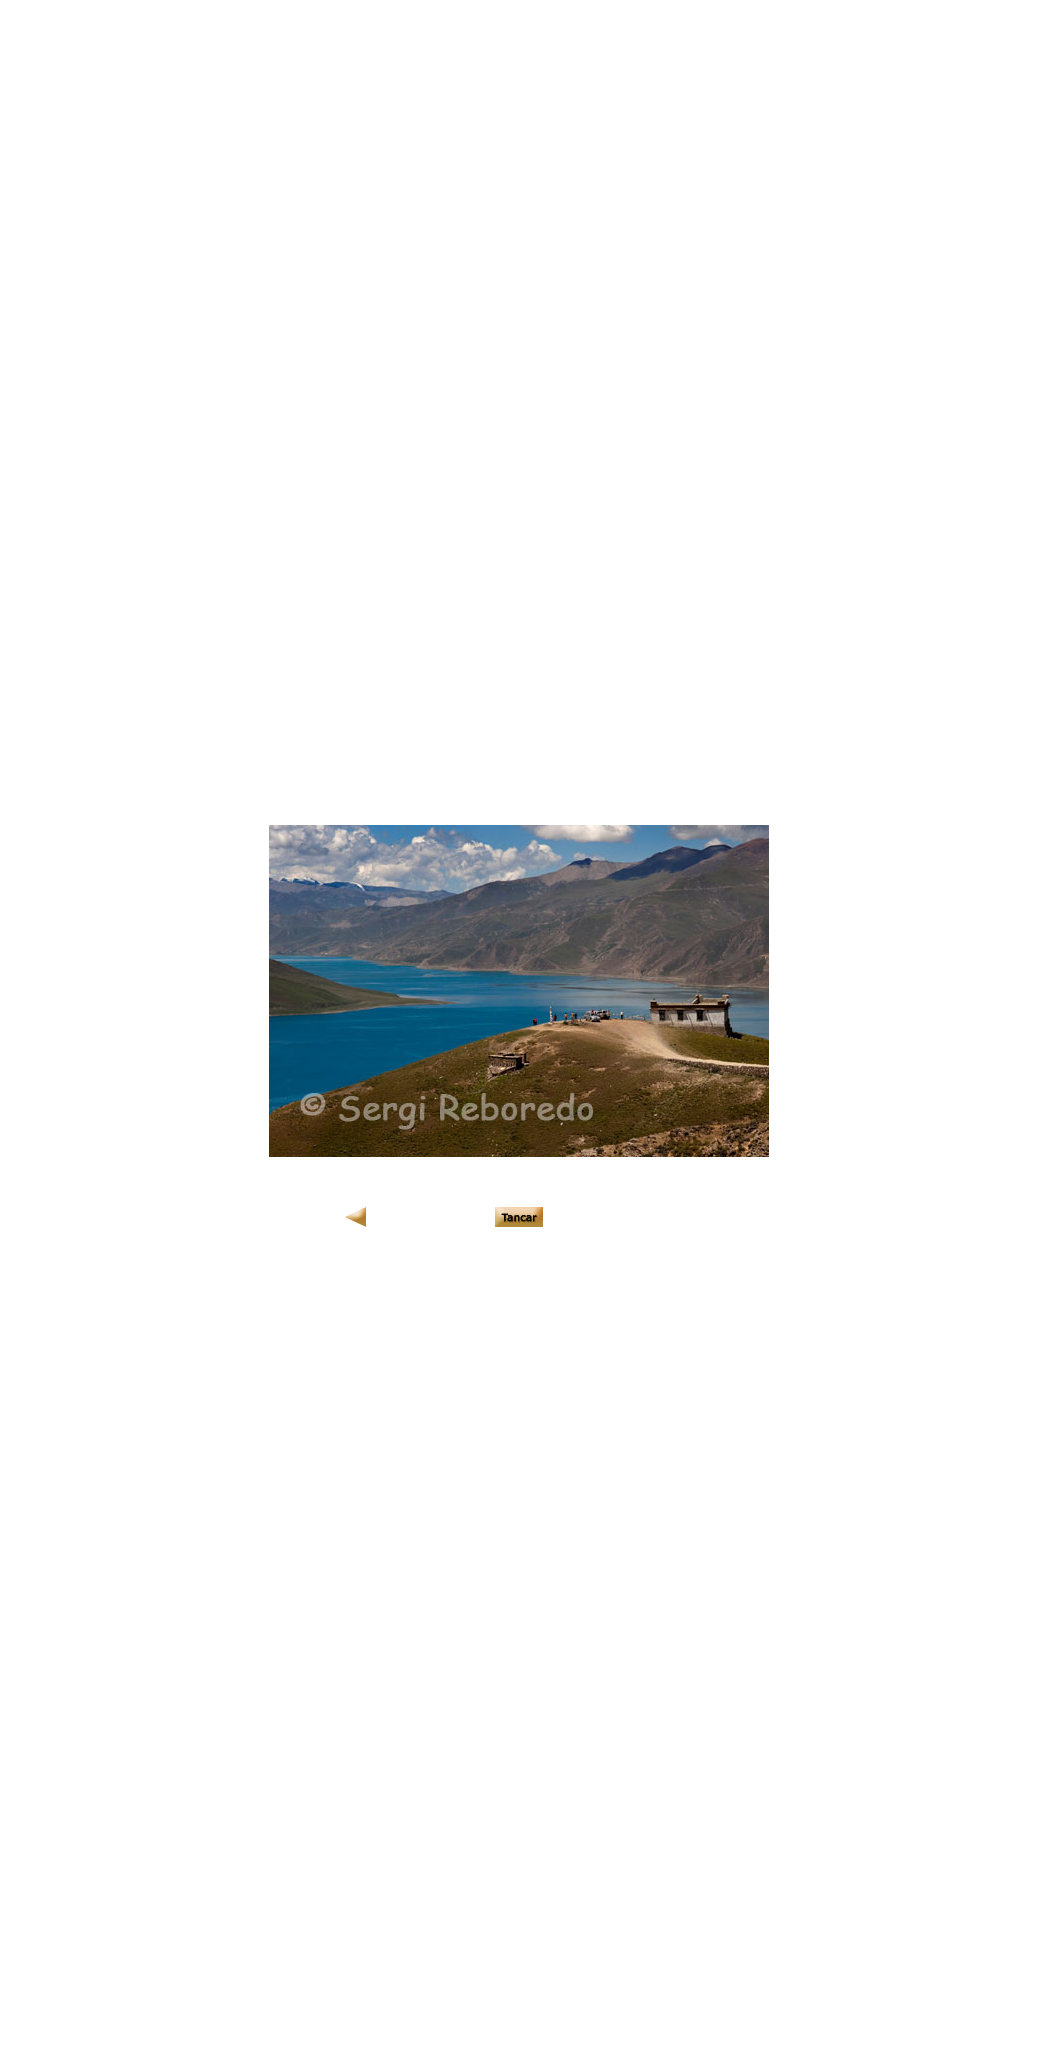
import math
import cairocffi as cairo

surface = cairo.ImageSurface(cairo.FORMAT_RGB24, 1038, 2052)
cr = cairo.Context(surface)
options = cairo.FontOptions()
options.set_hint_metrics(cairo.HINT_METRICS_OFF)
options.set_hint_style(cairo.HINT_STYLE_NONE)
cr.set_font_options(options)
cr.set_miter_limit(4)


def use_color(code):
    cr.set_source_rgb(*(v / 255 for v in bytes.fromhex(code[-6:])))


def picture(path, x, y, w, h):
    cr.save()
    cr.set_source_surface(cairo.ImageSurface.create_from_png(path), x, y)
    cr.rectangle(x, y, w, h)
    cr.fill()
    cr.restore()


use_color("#ffffff")
cr.paint()
picture("img1.png", 269, 825, 500, 332)
picture("img2.png", 345, 1207, 21, 20)
picture("img3.png", 495, 1207, 48, 20)
surface.write_to_png("result.png")
